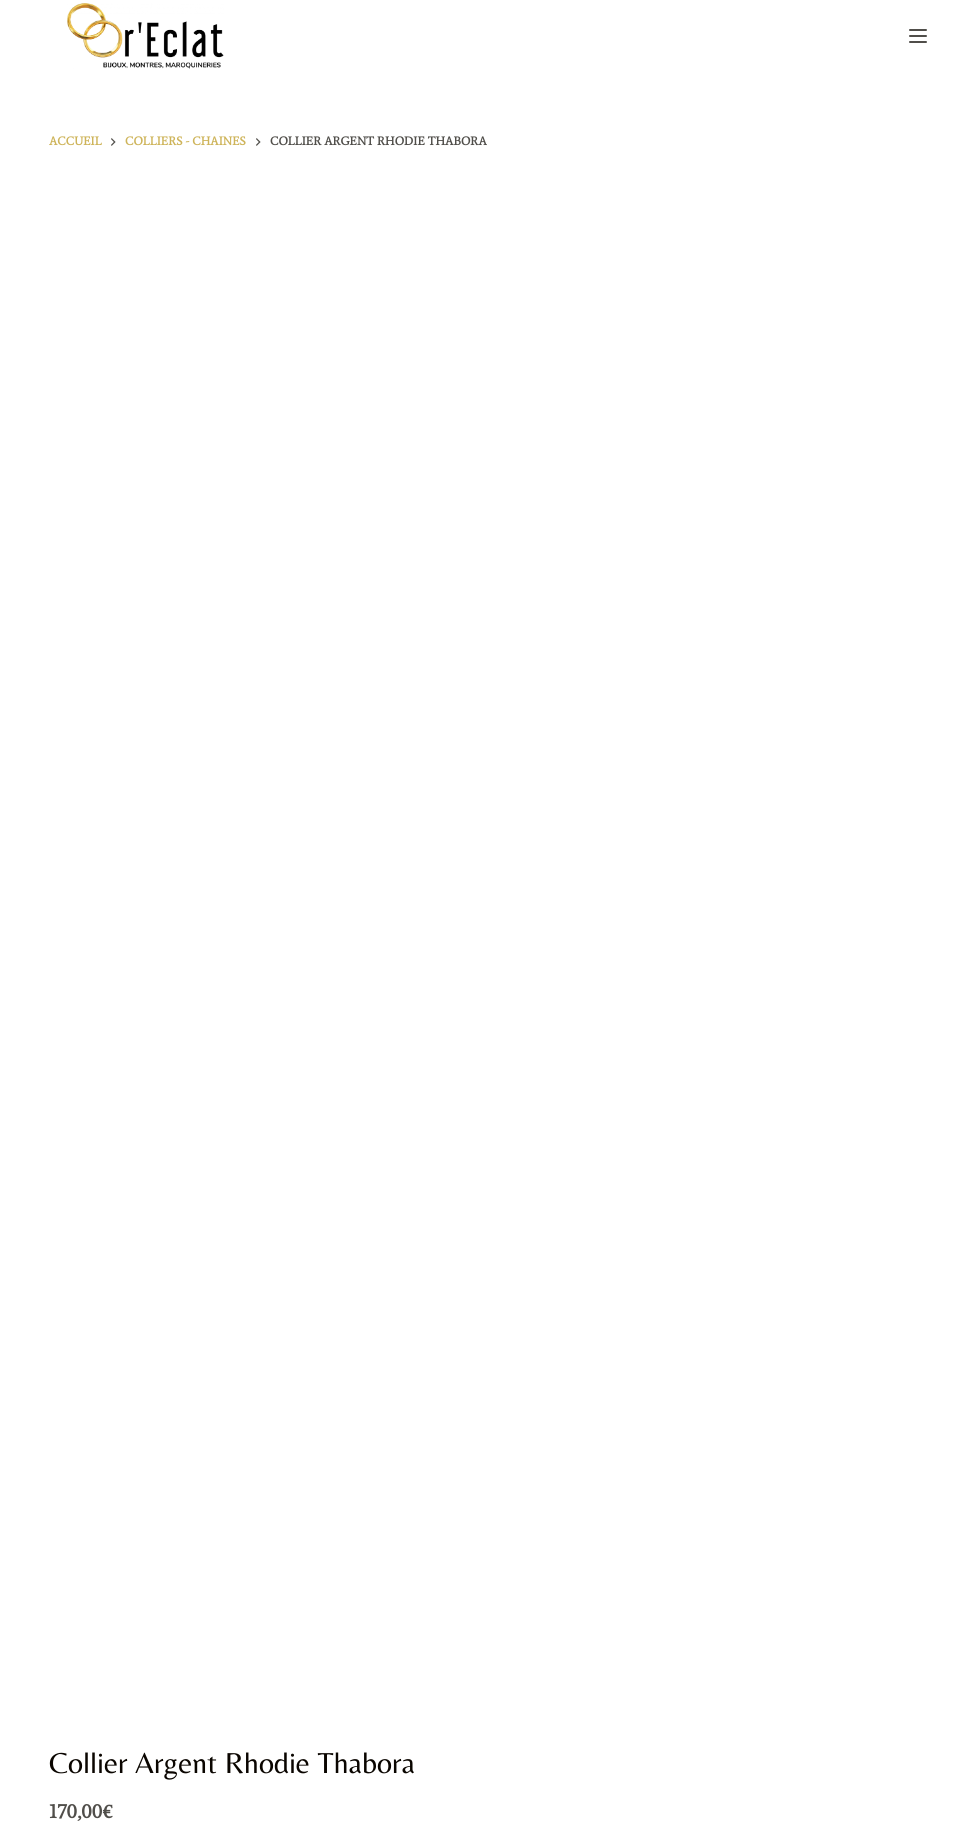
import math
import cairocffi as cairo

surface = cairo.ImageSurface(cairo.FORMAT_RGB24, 976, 1845)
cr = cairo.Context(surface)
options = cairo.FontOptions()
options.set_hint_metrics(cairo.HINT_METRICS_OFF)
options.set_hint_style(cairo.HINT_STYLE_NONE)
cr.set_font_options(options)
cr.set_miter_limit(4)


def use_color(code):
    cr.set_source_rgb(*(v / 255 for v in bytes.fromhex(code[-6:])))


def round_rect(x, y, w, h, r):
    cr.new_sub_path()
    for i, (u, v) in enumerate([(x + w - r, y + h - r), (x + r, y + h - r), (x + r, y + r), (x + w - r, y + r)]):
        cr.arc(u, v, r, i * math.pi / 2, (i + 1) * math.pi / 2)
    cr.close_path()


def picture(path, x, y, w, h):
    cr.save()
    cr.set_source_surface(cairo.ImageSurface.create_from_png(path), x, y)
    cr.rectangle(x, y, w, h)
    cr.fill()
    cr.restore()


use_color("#ffffff")
cr.paint()
picture("img1.png", 67, 3, 157, 66)
use_color("#504e4a")
round_rect(909, 29, 18, 2, 1)
cr.fill()
round_rect(909, 35, 18, 2, 1)
cr.fill()
round_rect(909, 41, 18, 2, 1)
cr.fill()
cr.select_font_face("Average", cairo.FONT_SLANT_NORMAL, cairo.FONT_WEIGHT_BOLD)
cr.set_font_size(12)
use_color("#ceb45a")
cr.move_to(49, 145)
cr.show_text("ACCUEIL")
picture("img2.png", 111, 138, 5, 8)
cr.move_to(125, 145)
cr.show_text("COLLIERS - CHAINES")
picture("img2.png", 256, 138, 5, 8)
use_color("#504e4a")
cr.move_to(270, 145)
cr.show_text("COLLIER ARGENT RHODIE THABORA")
cr.select_font_face("Belleza")
cr.set_font_size(30)
use_color("#0a0500")
cr.move_to(49, 1773)
cr.show_text("Collier Argent Rhodie Thabora")
cr.select_font_face("Average", cairo.FONT_SLANT_NORMAL, cairo.FONT_WEIGHT_BOLD)
cr.set_font_size(20)
use_color("#504e4a")
cr.move_to(49, 1818)
cr.show_text("170,00€")
surface.write_to_png("result.png")
